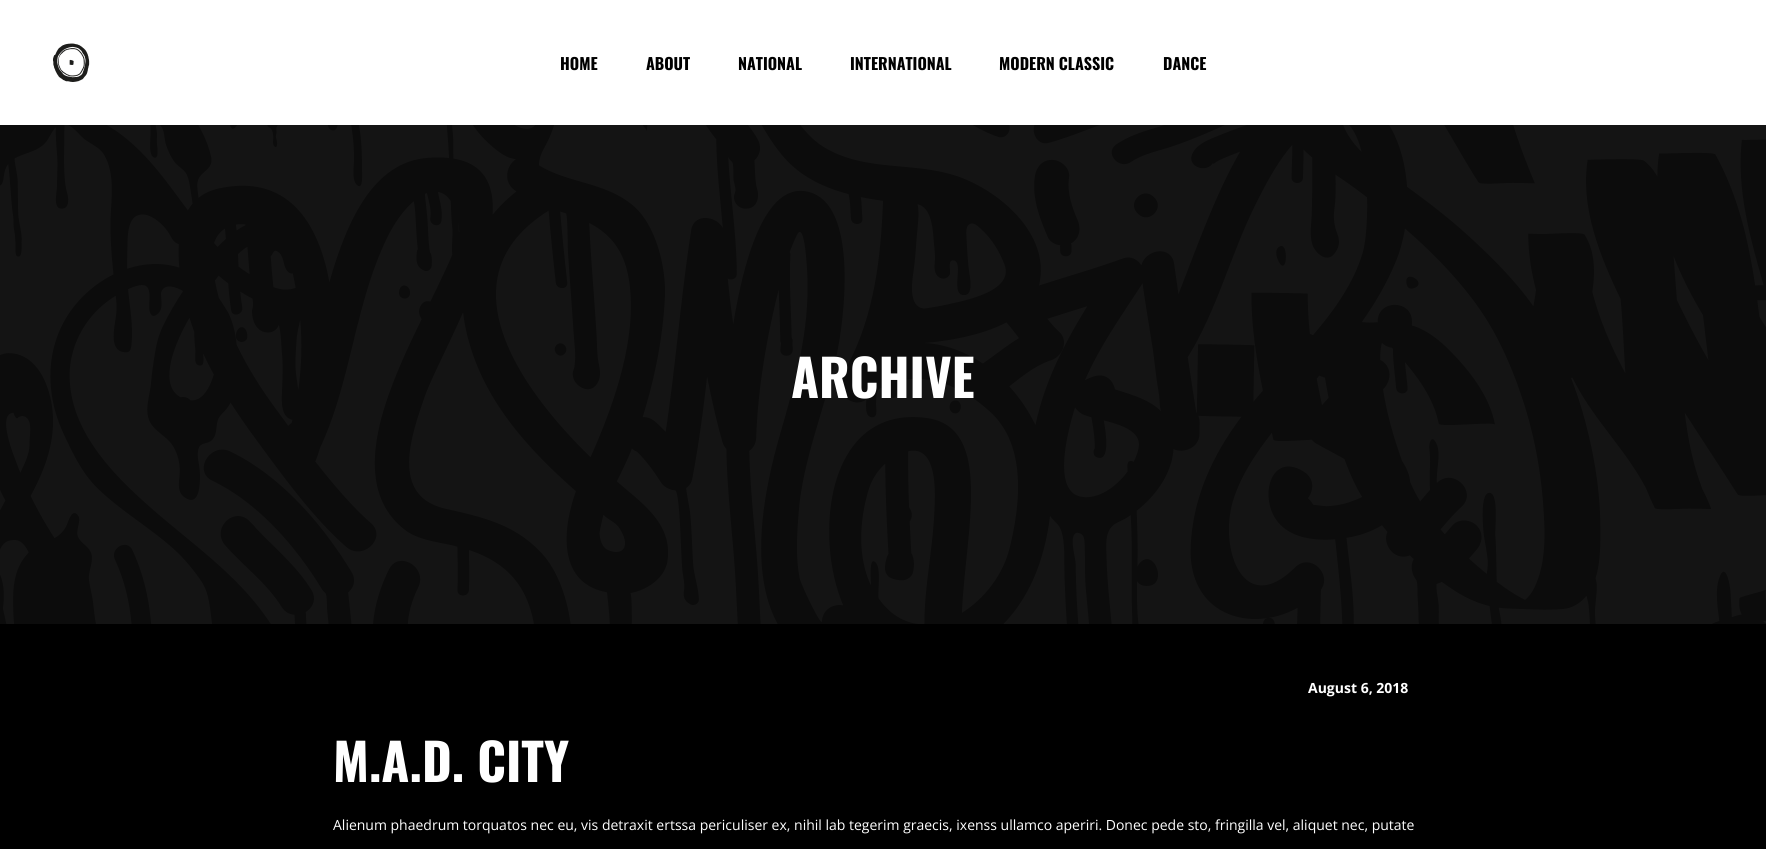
import math
import cairocffi as cairo

surface = cairo.ImageSurface(cairo.FORMAT_RGB24, 1766, 849)
cr = cairo.Context(surface)
options = cairo.FontOptions()
options.set_hint_metrics(cairo.HINT_METRICS_OFF)
options.set_hint_style(cairo.HINT_STYLE_NONE)
cr.set_font_options(options)
cr.set_miter_limit(4)


def use_color(code):
    cr.set_source_rgb(*(v / 255 for v in bytes.fromhex(code[-6:])))


def picture(path, x, y, w, h):
    cr.save()
    cr.set_source_surface(cairo.ImageSurface.create_from_png(path), x, y)
    cr.rectangle(x, y, w, h)
    cr.fill()
    cr.restore()


use_color("#ffffff")
cr.paint()
picture("img1.png", 53, 43, 37, 39)
cr.select_font_face("Oswald", cairo.FONT_SLANT_NORMAL, cairo.FONT_WEIGHT_BOLD)
cr.set_font_size(16)
use_color("#000000")
cr.move_to(560, 70)
cr.show_text("HOME")
cr.move_to(646, 70)
cr.show_text("ABOUT")
cr.move_to(738, 70)
cr.show_text("NATIONAL")
cr.move_to(850, 70)
cr.show_text("INTERNATIONAL")
cr.move_to(999, 70)
cr.show_text("MODERN CLASSIC")
cr.move_to(1163, 70)
cr.show_text("DANCE")
cr.rectangle(0, 624, 1766, 225)
cr.fill()
picture("img2.png", 0, 125, 1766, 499)
cr.set_font_size(51)
use_color("#ffffff")
cr.move_to(791, 398)
cr.show_text("ARCHIVE")
cr.select_font_face("Open Sans", cairo.FONT_SLANT_NORMAL, cairo.FONT_WEIGHT_BOLD)
cr.set_font_size(14)
cr.move_to(1308, 693)
cr.show_text("August 6, 2018")
cr.select_font_face("Oswald", cairo.FONT_SLANT_NORMAL, cairo.FONT_WEIGHT_BOLD)
cr.set_font_size(51)
cr.move_to(333, 782)
cr.show_text("M.A.D. CITY")
cr.select_font_face("Open Sans")
cr.set_font_size(14)
cr.move_to(333, 830)
cr.show_text("Alienum phaedrum torquatos nec eu, vis detraxit ertssa periculiser ex, nihil lab tegerim graecis, ixenss ullamco aperiri. Donec pede sto, fringilla vel, aliquet nec, putate")
surface.write_to_png("result.png")
